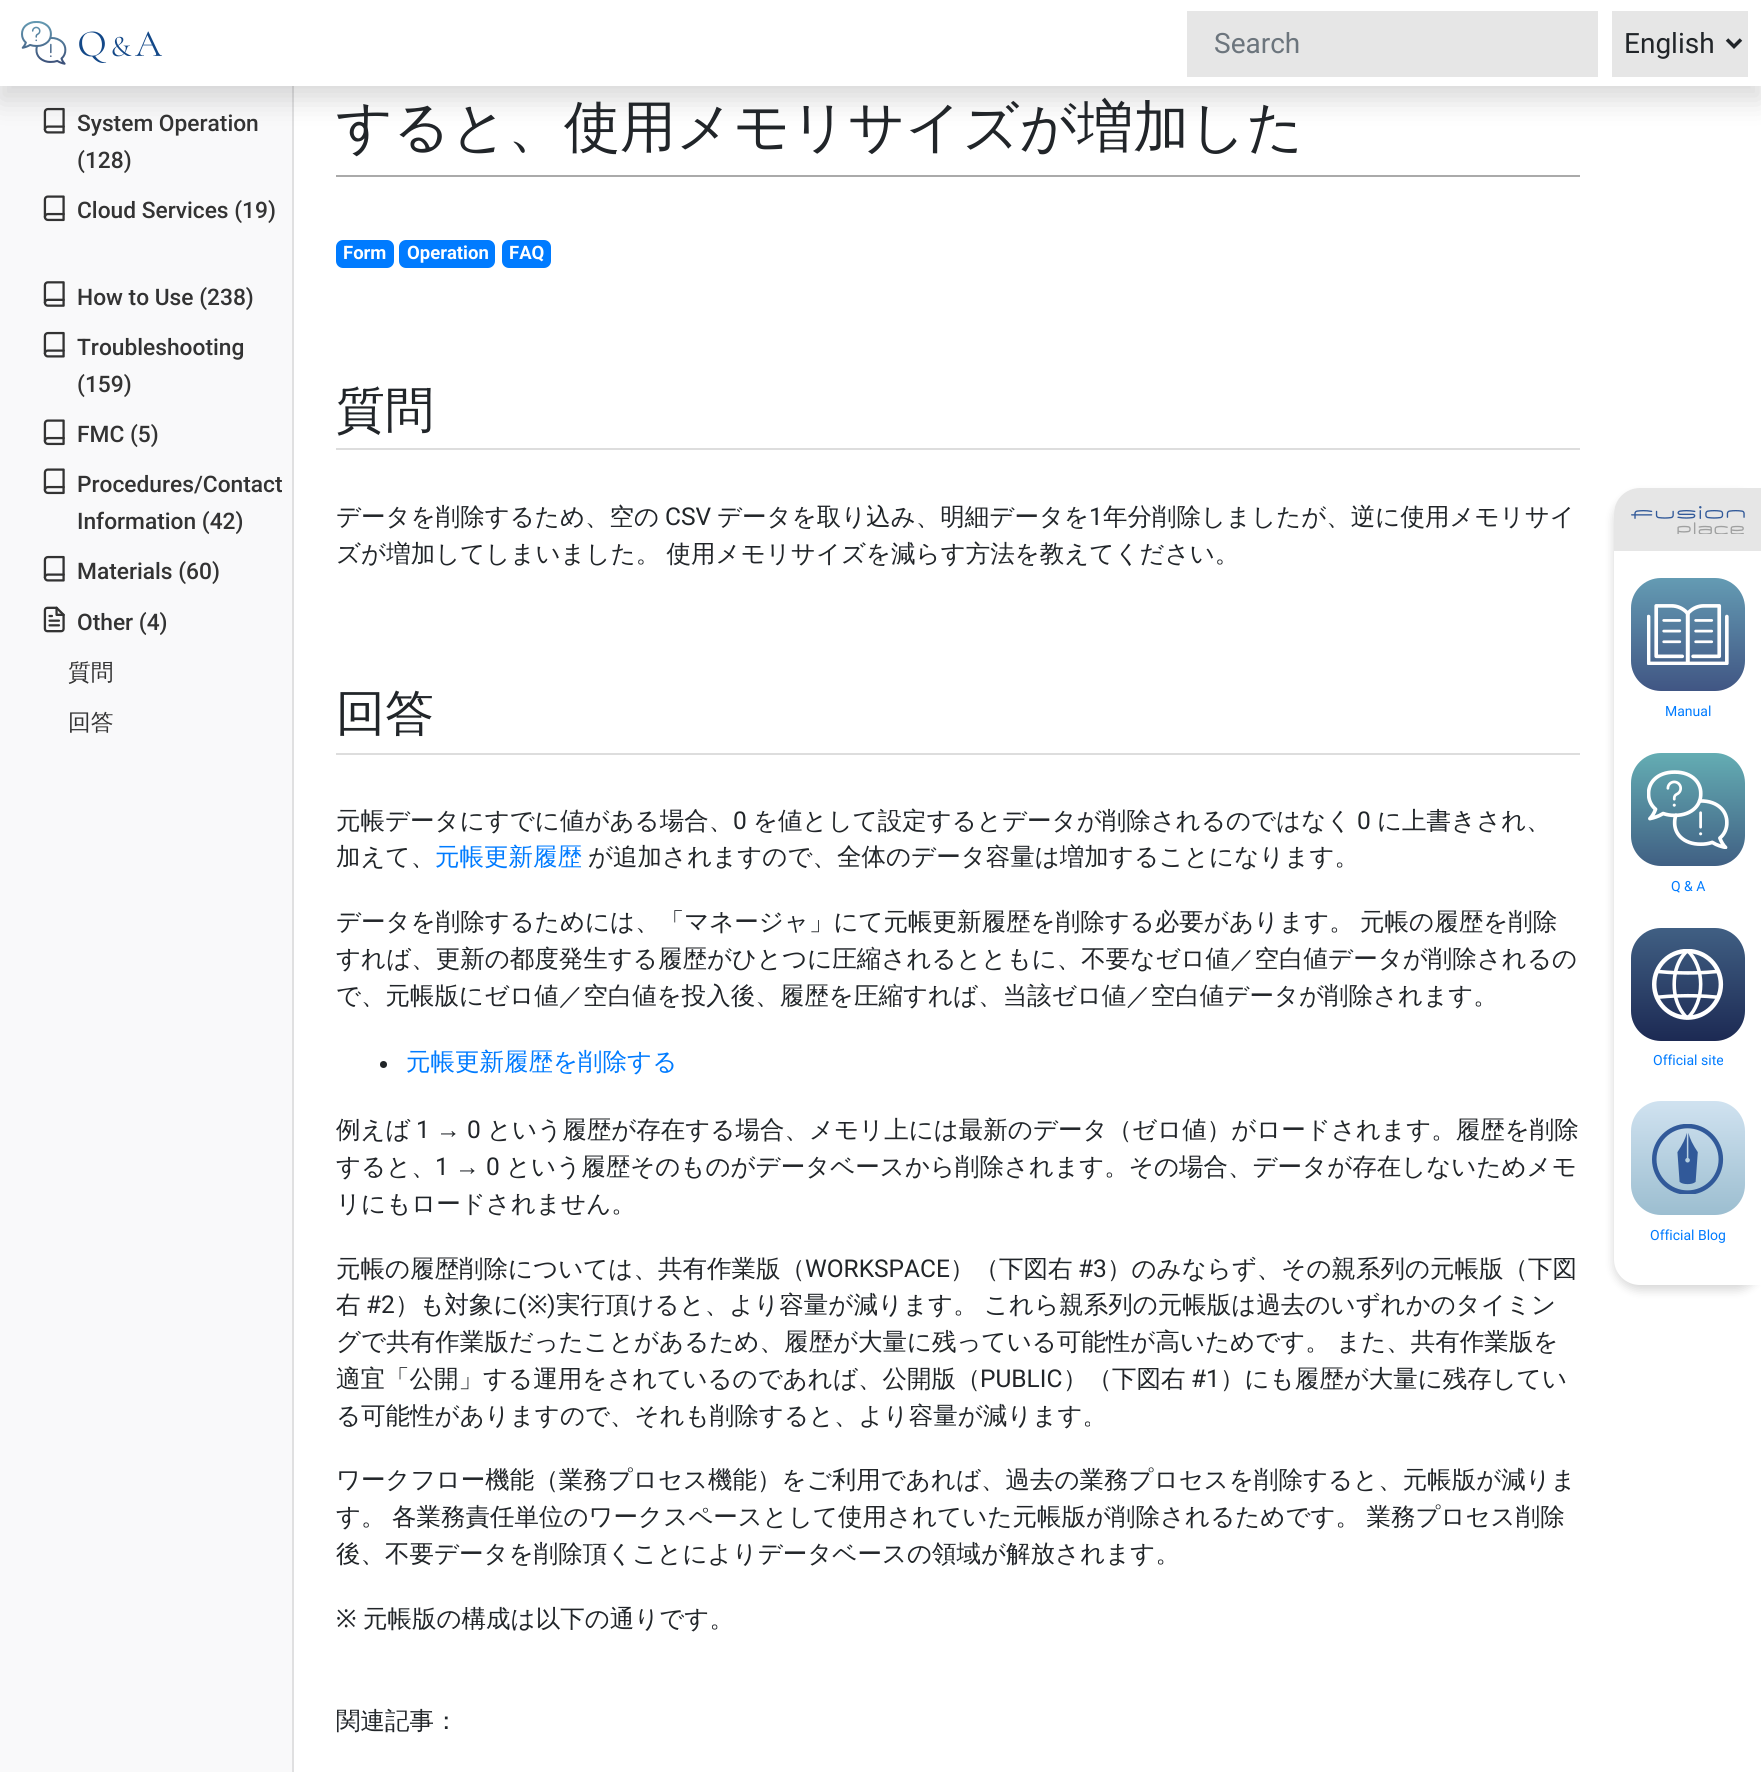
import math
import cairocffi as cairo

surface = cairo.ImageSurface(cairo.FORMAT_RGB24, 1761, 1772)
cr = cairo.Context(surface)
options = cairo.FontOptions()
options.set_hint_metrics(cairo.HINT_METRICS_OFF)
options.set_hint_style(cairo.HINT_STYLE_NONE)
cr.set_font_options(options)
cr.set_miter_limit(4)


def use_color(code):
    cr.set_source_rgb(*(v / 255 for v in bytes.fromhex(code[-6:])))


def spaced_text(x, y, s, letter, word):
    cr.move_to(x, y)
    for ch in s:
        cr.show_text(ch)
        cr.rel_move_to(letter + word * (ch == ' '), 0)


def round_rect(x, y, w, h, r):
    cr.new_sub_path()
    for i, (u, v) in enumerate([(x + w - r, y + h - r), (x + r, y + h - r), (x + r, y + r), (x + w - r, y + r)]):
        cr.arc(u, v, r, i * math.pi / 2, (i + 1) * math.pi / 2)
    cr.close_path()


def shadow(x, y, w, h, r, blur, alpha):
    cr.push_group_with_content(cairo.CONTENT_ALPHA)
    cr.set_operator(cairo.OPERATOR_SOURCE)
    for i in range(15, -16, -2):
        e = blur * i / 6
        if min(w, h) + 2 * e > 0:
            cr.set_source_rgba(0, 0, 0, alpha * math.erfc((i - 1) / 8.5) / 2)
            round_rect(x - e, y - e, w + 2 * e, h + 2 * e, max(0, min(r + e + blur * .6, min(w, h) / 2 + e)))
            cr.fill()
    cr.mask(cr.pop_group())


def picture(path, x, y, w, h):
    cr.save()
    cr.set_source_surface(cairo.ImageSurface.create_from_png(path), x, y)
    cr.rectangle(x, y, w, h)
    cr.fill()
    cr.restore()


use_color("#ffffff")
cr.paint()
use_color("#f9f9fa")
cr.rectangle(0, 86, 292, 1686)
cr.fill()
use_color("#e0e0e1")
cr.rectangle(292, 86, 2, 1686)
cr.fill()
picture("img2.png", 43, 107, 22, 27)
use_color("#000000")
shadow(0, 14, 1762, 86, 0, 14, 0.15)
use_color("#ffffff")
cr.rectangle(0, 0, 1761, 86)
cr.fill()
picture("img1.png", 21, 21, 142, 44)
use_color("#e6e6e6")
cr.rectangle(1187, 11, 411, 66)
cr.fill()
cr.select_font_face("Roboto")
cr.set_font_size(28)
use_color("#6c757d")
cr.move_to(1214, 53)
cr.show_text("Search")
use_color("#e6e6e6")
cr.rectangle(1612, 11, 136, 66)
cr.fill()
cr.new_path()
cr.move_to(1727, 39.5)
cr.line_to(1734, 46.5)
cr.line_to(1741, 39.5)
use_color("#212529")
cr.set_line_width(3.5)
cr.stroke()
cr.move_to(1624, 53)
cr.show_text("English")
cr.select_font_face("Roboto Medium")
cr.set_font_size(22.75)
use_color("#333333")
cr.move_to(77, 131)
cr.show_text("System Operation")
cr.move_to(77, 168)
cr.show_text("(128)")
picture("img3.png", 43, 195, 22, 27)
cr.move_to(77, 218)
cr.show_text("Cloud Services (19)")
picture("img4.png", 43, 281, 22, 26)
cr.move_to(77, 305)
cr.show_text("How to Use (238)")
picture("img2.png", 43, 331, 22, 27)
cr.move_to(77, 355)
cr.show_text("Troubleshooting")
cr.move_to(77, 392)
cr.show_text("(159)")
picture("img3.png", 43, 419, 22, 27)
cr.move_to(77, 442)
cr.show_text("FMC (5)")
picture("img3.png", 43, 468, 22, 27)
cr.move_to(77, 492)
cr.show_text("Procedures/Contact")
cr.move_to(77, 529)
cr.show_text("Information (42)")
picture("img2.png", 43, 555, 22, 27)
cr.move_to(77, 579)
cr.show_text("Materials (60)")
picture("img5.png", 43, 606, 22, 27)
cr.move_to(77, 630)
cr.show_text("Other (4)")
cr.select_font_face("WenQuanYi Zen Hei Medium")
cr.move_to(68, 680)
cr.show_text("質問")
cr.move_to(68, 730)
cr.show_text("回答")
use_color("#aaaaaa")
cr.rectangle(336, 175, 1244, 2)
cr.fill()
cr.set_font_size(56)
use_color("#212529")
cr.move_to(336, 146)
cr.show_text("すると、使用メモリサイズが増加した")
use_color("#007bff")
round_rect(336, 240, 58, 28, 7)
cr.fill()
cr.select_font_face("Roboto", cairo.FONT_SLANT_NORMAL, cairo.FONT_WEIGHT_BOLD)
cr.set_font_size(18.5)
use_color("#ffffff")
cr.move_to(343, 259)
cr.show_text("Form")
use_color("#007bff")
round_rect(399, 240, 96, 28, 7)
cr.fill()
use_color("#ffffff")
cr.move_to(407, 259)
cr.show_text("Operation")
use_color("#007bff")
round_rect(502, 240, 49, 28, 7)
cr.fill()
use_color("#ffffff")
cr.move_to(509, 259)
cr.show_text("FAQ")
use_color("#dddddd")
cr.rectangle(336, 448, 1244, 2)
cr.fill()
cr.select_font_face("WenQuanYi Zen Hei Medium")
cr.set_font_size(49)
use_color("#212529")
cr.move_to(336, 427)
cr.show_text("質問")
cr.set_font_size(24.5)
cr.move_to(336, 525)
cr.show_text("データを削除するため、空の")
cr.select_font_face("Roboto")
cr.move_to(665, 525)
cr.show_text("CSV")
cr.select_font_face("WenQuanYi Zen Hei Medium")
cr.move_to(717, 525)
cr.show_text("データを取り込み、明細データを")
cr.select_font_face("Roboto")
cr.move_to(1089, 525)
cr.show_text("1")
cr.select_font_face("WenQuanYi Zen Hei Medium")
cr.move_to(1103, 525)
cr.show_text("年分削除しましたが、逆に使用メモリサイ")
spaced_text(336, 562, "ズが増加してしまいました。 使用メモリサイズを減らす方法を教えてください。", 0, -1)
use_color("#dddddd")
cr.rectangle(336, 753, 1244, 2)
cr.fill()
cr.set_font_size(49)
use_color("#212529")
cr.move_to(336, 730)
cr.show_text("回答")
cr.set_font_size(24.5)
cr.move_to(336, 829)
cr.show_text("元帳データにすでに値がある場合、")
cr.select_font_face("Roboto")
cr.move_to(733, 829)
cr.show_text("0")
cr.select_font_face("WenQuanYi Zen Hei Medium")
cr.move_to(753, 829)
cr.show_text("を値として設定するとデータが削除されるのではなく")
cr.select_font_face("Roboto")
cr.move_to(1357, 829)
cr.show_text("0")
cr.select_font_face("WenQuanYi Zen Hei Medium")
cr.move_to(1377, 829)
cr.show_text("に上書きされ、")
cr.move_to(336, 865)
cr.show_text("加えて、")
use_color("#007bff")
cr.move_to(435, 865)
cr.show_text("元帳更新履歴")
use_color("#212529")
cr.move_to(588, 865)
cr.show_text("が追加されますので、全体のデータ容量は増加することになります。")
spaced_text(336, 930, "データを削除するためには、「マネージャ」にて元帳更新履歴を削除する必要があります。 元帳の履歴を削除", 0, -1)
cr.move_to(336, 967)
cr.show_text("すれば、更新の都度発生する履歴がひとつに圧縮されるとともに、不要なゼロ値／空白値データが削除されるの")
cr.move_to(336, 1004)
cr.show_text("で、元帳版にゼロ値／空白値を投入後、履歴を圧縮すれば、当該ゼロ値／空白値データが削除されます。")
cr.new_path()
cr.arc(383.5, 1064.5, 3.5, 0, 2 * math.pi)
cr.fill()
use_color("#007bff")
cr.move_to(406, 1070)
cr.show_text("元帳更新履歴を削除する")
use_color("#212529")
cr.move_to(336, 1138)
cr.show_text("例えば")
cr.select_font_face("Roboto")
cr.move_to(416, 1138)
cr.show_text("1")
cr.select_font_face("Liberation Sans")
cr.move_to(436, 1138)
cr.show_text("→")
cr.select_font_face("Roboto")
cr.move_to(467, 1138)
cr.show_text("0")
cr.select_font_face("WenQuanYi Zen Hei Medium")
cr.move_to(487, 1138)
cr.show_text("という履歴が存在する場合、メモリ上には最新のデータ（ゼロ値）がロードされます。履歴を削除")
cr.move_to(336, 1175)
cr.show_text("すると、")
cr.select_font_face("Roboto")
cr.move_to(435, 1175)
cr.show_text("1")
cr.select_font_face("Liberation Sans")
cr.move_to(455, 1175)
cr.show_text("→")
cr.select_font_face("Roboto")
cr.move_to(486, 1175)
cr.show_text("0")
cr.select_font_face("WenQuanYi Zen Hei Medium")
cr.move_to(506, 1175)
cr.show_text("という履歴そのものがデータベースから削除されます。その場合、データが存在しないためメモ")
cr.move_to(336, 1212)
cr.show_text("リにもロードされません。")
cr.move_to(336, 1277)
cr.show_text("元帳の履歴削除については、共有作業版（")
cr.select_font_face("Roboto")
cr.move_to(805, 1277)
cr.show_text("WORKSPACE")
cr.select_font_face("WenQuanYi Zen Hei Medium")
cr.move_to(950, 1277)
cr.show_text("）（下図右")
cr.select_font_face("Roboto")
cr.move_to(1078, 1277)
cr.show_text("#3")
cr.select_font_face("WenQuanYi Zen Hei Medium")
cr.move_to(1107, 1277)
cr.show_text("）のみならず、その親系列の元帳版（下図")
cr.move_to(336, 1313)
cr.show_text("右")
cr.select_font_face("Roboto")
cr.move_to(366, 1313)
cr.show_text("#2")
cr.select_font_face("WenQuanYi Zen Hei Medium")
cr.move_to(395, 1313)
cr.show_text("）も対象に")
cr.select_font_face("Roboto")
cr.move_to(518, 1313)
cr.show_text("(")
cr.select_font_face("Noto Sans")
cr.move_to(527, 1313)
cr.show_text("※")
cr.select_font_face("Roboto")
cr.move_to(547, 1313)
cr.show_text(")")
cr.select_font_face("WenQuanYi Zen Hei Medium")
spaced_text(556, 1313, "実行頂けると、より容量が減ります。 これら親系列の元帳版は過去のいずれかのタイミン", 0, -1)
spaced_text(336, 1350, "グで共有作業版だったことがあるため、履歴が大量に残っている可能性が高いためです。 また、共有作業版を", 0, -1)
cr.move_to(336, 1387)
cr.show_text("適宜「公開」する運用をされているのであれば、公開版（")
cr.select_font_face("Roboto")
cr.move_to(980, 1387)
cr.show_text("PUBLIC")
cr.select_font_face("WenQuanYi Zen Hei Medium")
cr.move_to(1063, 1387)
cr.show_text("）（下図右")
cr.select_font_face("Roboto")
cr.move_to(1191, 1387)
cr.show_text("#1")
cr.select_font_face("WenQuanYi Zen Hei Medium")
cr.move_to(1220, 1387)
cr.show_text("）にも履歴が大量に残存してい")
cr.move_to(336, 1424)
cr.show_text("る可能性がありますので、それも削除すると、より容量が減ります。")
cr.move_to(336, 1488)
cr.show_text("ワークフロー機能（業務プロセス機能）をご利用であれば、過去の業務プロセスを削除すると、元帳版が減りま")
spaced_text(336, 1525, "す。 各業務責任単位のワークスペースとして使用されていた元帳版が削除されるためです。 業務プロセス削除", 0, -1)
cr.move_to(336, 1562)
cr.show_text("後、不要データを削除頂くことによりデータベースの領域が解放されます。")
cr.select_font_face("Noto Sans")
cr.move_to(336, 1627)
cr.show_text("※")
cr.select_font_face("WenQuanYi Zen Hei Medium")
cr.move_to(363, 1627)
cr.show_text("元帳版の構成は以下の通りです。")
cr.move_to(336, 1729)
cr.show_text("関連記事：")
use_color("#000000")
shadow(1614, 494, 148, 796, 26, 5, 0.16)
use_color("#ffffff")
cr.new_path()
cr.move_to(1640, 488)
cr.line_to(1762, 488)
cr.line_to(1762, 1285)
cr.line_to(1640, 1285)
cr.curve_to(1625.5, 1285, 1614, 1273.5, 1614, 1259)
cr.line_to(1614, 514)
cr.curve_to(1614, 499.5, 1625.5, 488, 1640, 488)
cr.close_path()
cr.fill()
use_color("#e6e6e6")
cr.new_path()
cr.move_to(1640, 488)
cr.line_to(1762, 488)
cr.line_to(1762, 551)
cr.line_to(1614, 551)
cr.line_to(1614, 514)
cr.curve_to(1614, 499.5, 1625.5, 488, 1640, 488)
cr.close_path()
cr.fill()
picture("img6.png", 1631, 506, 114, 28)
gradient = cairo.LinearGradient(1688, 578, 1688, 692)
gradient.add_color_stop_rgba(0, 0.392, 0.608, 0.702, 1)
gradient.add_color_stop_rgba(1, 0.251, 0.333, 0.514, 1)
cr.set_source(gradient)
round_rect(1631, 578, 114, 113, 30)
cr.fill()
picture("img7.png", 1647, 604, 82, 61)
cr.select_font_face("Roboto")
cr.set_font_size(14)
use_color("#007bff")
cr.move_to(1665, 716)
cr.show_text("Manual")
gradient = cairo.LinearGradient(1688, 753, 1688, 867)
gradient.add_color_stop_rgba(0, 0.392, 0.678, 0.702, 1)
gradient.add_color_stop_rgba(1, 0.251, 0.373, 0.514, 1)
cr.set_source(gradient)
round_rect(1631, 753, 114, 113, 30)
cr.fill()
picture("img8.png", 1647, 770, 82, 79)
use_color("#007bff")
cr.move_to(1671, 891)
cr.show_text("Q & A")
gradient = cairo.LinearGradient(1688, 928, 1688, 1042)
gradient.add_color_stop_rgba(0, 0.251, 0.373, 0.514, 1)
gradient.add_color_stop_rgba(1, 0.11, 0.161, 0.325, 1)
cr.set_source(gradient)
round_rect(1631, 928, 114, 113, 30)
cr.fill()
picture("img9.png", 1652, 949, 72, 71)
use_color("#007bff")
cr.move_to(1653, 1065)
cr.show_text("Official site")
gradient = cairo.LinearGradient(1688, 1101, 1688, 1215)
gradient.add_color_stop_rgba(0, 0.816, 0.886, 0.941, 1)
gradient.add_color_stop_rgba(1, 0.612, 0.745, 0.816, 1)
cr.set_source(gradient)
round_rect(1631, 1101, 114, 114, 30)
cr.fill()
picture("img10.png", 1652, 1124, 72, 70)
use_color("#007bff")
cr.move_to(1650, 1240)
cr.show_text("Official Blog")
surface.write_to_png("result.png")
